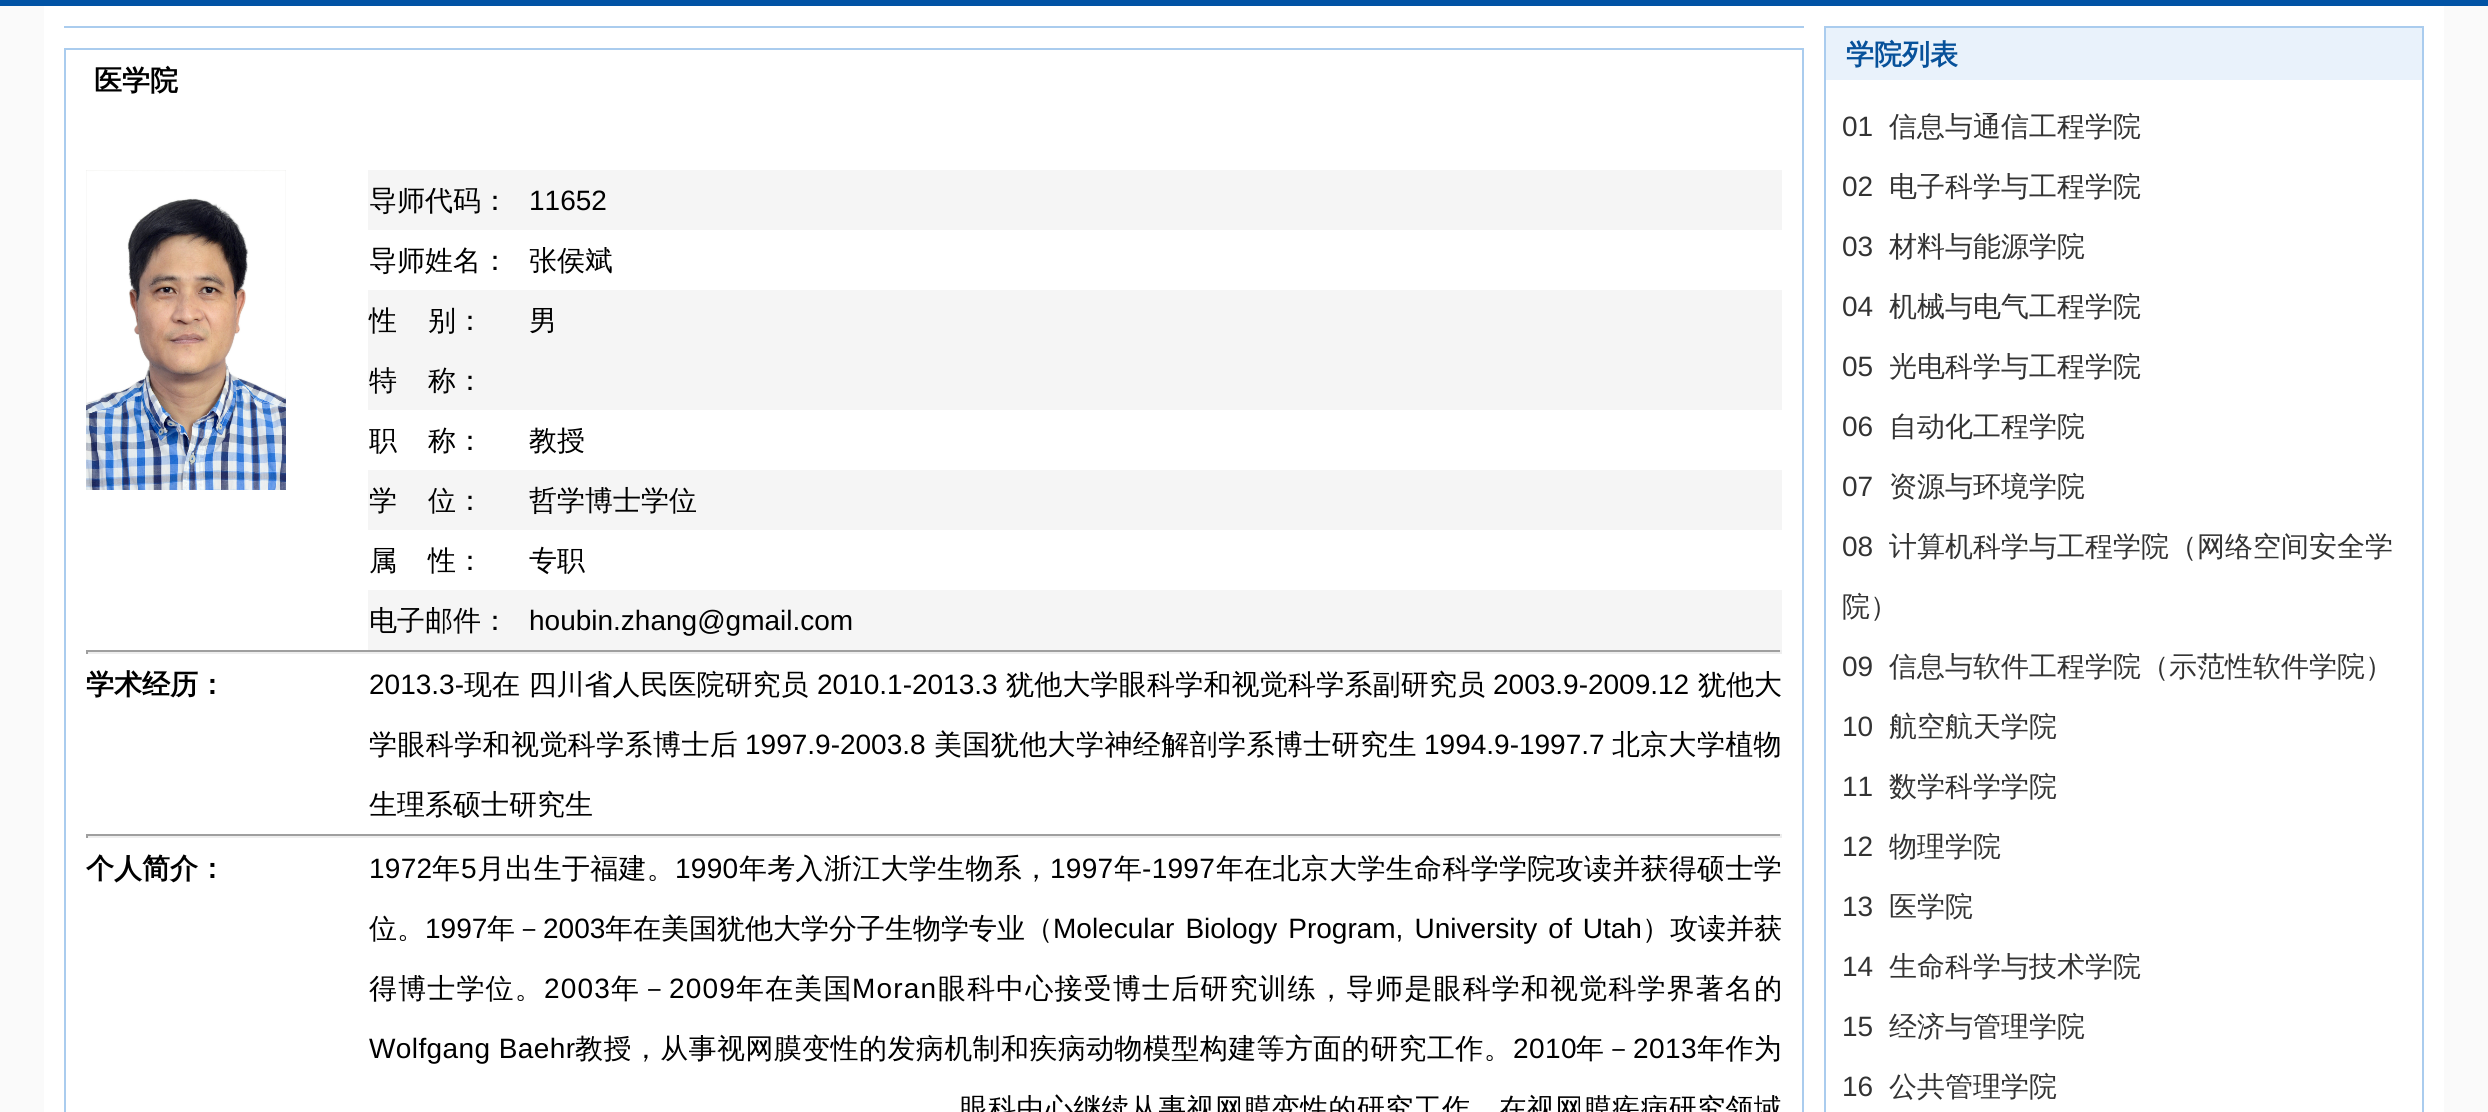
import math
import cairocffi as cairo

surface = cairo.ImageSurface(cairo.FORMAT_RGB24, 2488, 1112)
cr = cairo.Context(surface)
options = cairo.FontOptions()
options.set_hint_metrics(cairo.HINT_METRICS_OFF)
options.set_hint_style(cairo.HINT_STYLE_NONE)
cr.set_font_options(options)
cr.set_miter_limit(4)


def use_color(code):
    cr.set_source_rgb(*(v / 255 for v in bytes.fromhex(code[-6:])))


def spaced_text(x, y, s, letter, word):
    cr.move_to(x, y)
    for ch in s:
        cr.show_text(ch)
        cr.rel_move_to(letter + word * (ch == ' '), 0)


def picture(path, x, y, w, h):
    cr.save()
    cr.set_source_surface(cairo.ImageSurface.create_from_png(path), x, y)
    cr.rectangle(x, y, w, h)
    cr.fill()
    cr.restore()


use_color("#fafafa")
cr.paint()
use_color("#0153a5")
cr.rectangle(0, 0, 2488, 6)
cr.fill()
use_color("#ffffff")
cr.rectangle(44, 6, 2400, 1106)
cr.fill()
use_color("#aaccee")
cr.rectangle(64, 26, 1740, 2)
cr.fill()
cr.rectangle(65, 49, 1738, 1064)
cr.stroke()
cr.select_font_face("WenQuanYi Zen Hei", cairo.FONT_SLANT_NORMAL, cairo.FONT_WEIGHT_BOLD)
cr.set_font_size(28)
use_color("#000000")
cr.move_to(94, 90)
cr.show_text("医学院")
picture("img1.png", 86, 170, 200, 320)
use_color("#f5f5f5")
cr.rectangle(368, 170, 1414, 60)
cr.fill()
cr.select_font_face("WenQuanYi Zen Hei Medium")
use_color("#000000")
cr.move_to(369, 210)
cr.show_text("导师代码：")
cr.select_font_face("Liberation Sans")
cr.move_to(529, 210)
cr.show_text("11652")
cr.select_font_face("WenQuanYi Zen Hei Medium")
cr.move_to(369, 270)
cr.show_text("导师姓名：")
cr.move_to(529, 270)
cr.show_text("张侯斌")
use_color("#f5f5f5")
cr.rectangle(368, 290, 1414, 120)
cr.fill()
use_color("#000000")
cr.move_to(369, 330)
cr.show_text("性")
cr.move_to(428, 330)
cr.show_text("别：")
cr.move_to(529, 330)
cr.show_text("男")
cr.move_to(369, 390)
cr.show_text("特")
cr.move_to(428, 390)
cr.show_text("称：")
cr.move_to(369, 450)
cr.show_text("职")
cr.move_to(428, 450)
cr.show_text("称：")
cr.move_to(529, 450)
cr.show_text("教授")
use_color("#f5f5f5")
cr.rectangle(368, 470, 1414, 60)
cr.fill()
use_color("#000000")
cr.move_to(369, 510)
cr.show_text("学")
cr.move_to(428, 510)
cr.show_text("位：")
cr.move_to(529, 510)
cr.show_text("哲学博士学位")
cr.move_to(369, 570)
cr.show_text("属")
cr.move_to(428, 570)
cr.show_text("性：")
cr.move_to(529, 570)
cr.show_text("专职")
use_color("#f5f5f5")
cr.rectangle(368, 590, 1414, 60)
cr.fill()
use_color("#000000")
cr.move_to(369, 630)
cr.show_text("电子邮件：")
cr.select_font_face("Liberation Sans")
cr.move_to(529, 630)
cr.show_text("houbin.zhang@gmail.com")
use_color("#9f9f9f")
cr.rectangle(86, 650, 1696, 2)
cr.fill()
use_color("#eeeeee")
cr.rectangle(1780, 650, 2, 4)
cr.fill()
cr.rectangle(86, 652, 1696, 2)
cr.fill()
use_color("#9f9f9f")
cr.rectangle(86, 650, 2, 4)
cr.fill()
cr.select_font_face("WenQuanYi Zen Hei", cairo.FONT_SLANT_NORMAL, cairo.FONT_WEIGHT_BOLD)
use_color("#000000")
cr.move_to(86, 694)
cr.show_text("学术经历：")
cr.select_font_face("Liberation Sans")
cr.move_to(369, 694)
cr.show_text("2013.3-")
cr.select_font_face("WenQuanYi Zen Hei Medium")
cr.move_to(464, 694)
cr.show_text("现在 四川省人民医院研究员")
cr.select_font_face("Liberation Sans")
cr.move_to(817, 694)
cr.show_text("2010.1-2013.3")
cr.select_font_face("WenQuanYi Zen Hei Medium")
spaced_text(1006, 694, "犹他大学眼科学和视觉科学系副研究员", 0.2, 0)
cr.select_font_face("Liberation Sans")
cr.move_to(1493, 694)
cr.show_text("2003.9-2009.12")
cr.select_font_face("WenQuanYi Zen Hei Medium")
cr.move_to(1698, 694)
cr.show_text("犹他大")
spaced_text(369, 754, "学眼科学和视觉科学系博士后", 0.4, 0)
cr.select_font_face("Liberation Sans")
cr.move_to(745, 754)
cr.show_text("1997.9-2003.8")
cr.select_font_face("WenQuanYi Zen Hei Medium")
spaced_text(934, 754, "美国犹他大学神经解剖学系博士研究生", 0.4, 0)
cr.select_font_face("Liberation Sans")
cr.move_to(1424, 754)
cr.show_text("1994.9-1997.7")
cr.select_font_face("WenQuanYi Zen Hei Medium")
spaced_text(1612, 754, "北京大学植物", 0.3, 0)
cr.move_to(369, 814)
cr.show_text("生理系硕士研究生")
use_color("#9f9f9f")
cr.rectangle(86, 834, 1696, 2)
cr.fill()
use_color("#eeeeee")
cr.rectangle(1780, 834, 2, 4)
cr.fill()
cr.rectangle(86, 836, 1696, 2)
cr.fill()
use_color("#9f9f9f")
cr.rectangle(86, 834, 2, 4)
cr.fill()
cr.select_font_face("WenQuanYi Zen Hei", cairo.FONT_SLANT_NORMAL, cairo.FONT_WEIGHT_BOLD)
use_color("#000000")
cr.move_to(86, 878)
cr.show_text("个人简介：")
cr.select_font_face("Liberation Sans")
spaced_text(369, 878, "1972", 0.3, 0)
cr.select_font_face("WenQuanYi Zen Hei Medium")
spaced_text(432, 878, "年", 0.3, 0)
cr.select_font_face("Liberation Sans")
spaced_text(461, 878, "5", 0.3, 0)
cr.select_font_face("WenQuanYi Zen Hei Medium")
spaced_text(477, 878, "月出生于福建。", 0.3, 0)
cr.select_font_face("Liberation Sans")
spaced_text(675, 878, "1990", 0.3, 0)
cr.select_font_face("WenQuanYi Zen Hei Medium")
spaced_text(739, 878, "年考入浙江大学生物系，", 0.3, 0)
cr.select_font_face("Liberation Sans")
spaced_text(1050, 878, "1997", 0.3, 0)
cr.select_font_face("WenQuanYi Zen Hei Medium")
spaced_text(1114, 878, "年", 0.3, 0)
cr.select_font_face("Liberation Sans")
spaced_text(1142, 878, "-1997", 0.3, 0)
cr.select_font_face("WenQuanYi Zen Hei Medium")
spaced_text(1216, 878, "年在北京大学生命科学学院攻读并获得硕士学", 0.3, 0)
cr.move_to(369, 938)
cr.show_text("位。")
cr.select_font_face("Liberation Sans")
cr.move_to(425, 938)
cr.show_text("1997")
cr.select_font_face("WenQuanYi Zen Hei Medium")
cr.move_to(487, 938)
cr.show_text("年－")
cr.select_font_face("Liberation Sans")
cr.move_to(543, 938)
cr.show_text("2003")
cr.select_font_face("WenQuanYi Zen Hei Medium")
cr.move_to(605, 938)
cr.show_text("年在美国犹他大学分子生物学专业（")
cr.select_font_face("Liberation Sans")
spaced_text(1053, 938, "Molecular Biology Program, University of Utah", 0, 3.25)
cr.select_font_face("WenQuanYi Zen Hei Medium")
cr.move_to(1642, 938)
cr.show_text("）攻读并获")
spaced_text(369, 998, "得博士学位。", 1.15, 0)
cr.select_font_face("Liberation Sans")
spaced_text(544, 998, "2003", 1.15, 0)
cr.select_font_face("WenQuanYi Zen Hei Medium")
spaced_text(611, 998, "年－", 1.15, 0)
cr.select_font_face("Liberation Sans")
spaced_text(669, 998, "2009", 1.15, 0)
cr.select_font_face("WenQuanYi Zen Hei Medium")
spaced_text(736, 998, "年在美国", 1.15, 0)
cr.select_font_face("Liberation Sans")
spaced_text(852, 998, "Moran", 1.15, 0)
cr.select_font_face("WenQuanYi Zen Hei Medium")
spaced_text(938, 998, "眼科中心接受博士后研究训练，导师是眼科学和视觉科学界著名的", 1.15, 0)
cr.select_font_face("Liberation Sans")
spaced_text(369, 1058, "Wolfgang Baehr", 0.4, 0)
cr.select_font_face("WenQuanYi Zen Hei Medium")
spaced_text(575, 1058, "教授，从事视网膜变性的发病机制和疾病动物模型构建等方面的研究工作。", 0.4, 0)
cr.select_font_face("Liberation Sans")
spaced_text(1513, 1058, "2010", 0.4, 0)
cr.select_font_face("WenQuanYi Zen Hei Medium")
spaced_text(1576, 1058, "年－", 0.4, 0)
cr.select_font_face("Liberation Sans")
spaced_text(1633, 1058, "2013", 0.4, 0)
cr.select_font_face("WenQuanYi Zen Hei Medium")
spaced_text(1697, 1058, "年作为", 0.4, 0)
spaced_text(960, 1118, "眼科中心继续从事视网膜变性的研究工作。在视网膜疾病研究领域", 0.35, 0)
use_color("#e9f2fb")
cr.rectangle(1826, 28, 596, 52)
cr.fill()
use_color("#aaccee")
cr.rectangle(1824, 26, 600, 2)
cr.fill()
cr.rectangle(2422, 26, 2, 1086)
cr.fill()
cr.rectangle(1824, 26, 2, 1086)
cr.fill()
cr.select_font_face("WenQuanYi Zen Hei", cairo.FONT_SLANT_NORMAL, cairo.FONT_WEIGHT_BOLD)
use_color("#07519a")
cr.move_to(1846, 64)
cr.show_text("学院列表")
cr.select_font_face("Liberation Sans")
use_color("#333333")
cr.move_to(1842, 136)
cr.show_text("01")
cr.select_font_face("WenQuanYi Zen Hei Medium")
cr.move_to(1889, 136)
cr.show_text("信息与通信工程学院")
cr.select_font_face("Liberation Sans")
cr.move_to(1842, 196)
cr.show_text("02")
cr.select_font_face("WenQuanYi Zen Hei Medium")
cr.move_to(1889, 196)
cr.show_text("电子科学与工程学院")
cr.select_font_face("Liberation Sans")
cr.move_to(1842, 256)
cr.show_text("03")
cr.select_font_face("WenQuanYi Zen Hei Medium")
cr.move_to(1889, 256)
cr.show_text("材料与能源学院")
cr.select_font_face("Liberation Sans")
cr.move_to(1842, 316)
cr.show_text("04")
cr.select_font_face("WenQuanYi Zen Hei Medium")
cr.move_to(1889, 316)
cr.show_text("机械与电气工程学院")
cr.select_font_face("Liberation Sans")
cr.move_to(1842, 376)
cr.show_text("05")
cr.select_font_face("WenQuanYi Zen Hei Medium")
cr.move_to(1889, 376)
cr.show_text("光电科学与工程学院")
cr.select_font_face("Liberation Sans")
cr.move_to(1842, 436)
cr.show_text("06")
cr.select_font_face("WenQuanYi Zen Hei Medium")
cr.move_to(1889, 436)
cr.show_text("自动化工程学院")
cr.select_font_face("Liberation Sans")
cr.move_to(1842, 496)
cr.show_text("07")
cr.select_font_face("WenQuanYi Zen Hei Medium")
cr.move_to(1889, 496)
cr.show_text("资源与环境学院")
cr.select_font_face("Liberation Sans")
cr.move_to(1842, 556)
cr.show_text("08")
cr.select_font_face("WenQuanYi Zen Hei Medium")
cr.move_to(1889, 556)
cr.show_text("计算机科学与工程学院（网络空间安全学")
cr.move_to(1842, 616)
cr.show_text("院）")
cr.select_font_face("Liberation Sans")
cr.move_to(1842, 676)
cr.show_text("09")
cr.select_font_face("WenQuanYi Zen Hei Medium")
cr.move_to(1889, 676)
cr.show_text("信息与软件工程学院（示范性软件学院）")
cr.select_font_face("Liberation Sans")
cr.move_to(1842, 736)
cr.show_text("10")
cr.select_font_face("WenQuanYi Zen Hei Medium")
cr.move_to(1889, 736)
cr.show_text("航空航天学院")
cr.select_font_face("Liberation Sans")
cr.move_to(1842, 796)
cr.show_text("11")
cr.select_font_face("WenQuanYi Zen Hei Medium")
cr.move_to(1889, 796)
cr.show_text("数学科学学院")
cr.select_font_face("Liberation Sans")
cr.move_to(1842, 856)
cr.show_text("12")
cr.select_font_face("WenQuanYi Zen Hei Medium")
cr.move_to(1889, 856)
cr.show_text("物理学院")
cr.select_font_face("Liberation Sans")
cr.move_to(1842, 916)
cr.show_text("13")
cr.select_font_face("WenQuanYi Zen Hei Medium")
cr.move_to(1889, 916)
cr.show_text("医学院")
cr.select_font_face("Liberation Sans")
cr.move_to(1842, 976)
cr.show_text("14")
cr.select_font_face("WenQuanYi Zen Hei Medium")
cr.move_to(1889, 976)
cr.show_text("生命科学与技术学院")
cr.select_font_face("Liberation Sans")
cr.move_to(1842, 1036)
cr.show_text("15")
cr.select_font_face("WenQuanYi Zen Hei Medium")
cr.move_to(1889, 1036)
cr.show_text("经济与管理学院")
cr.select_font_face("Liberation Sans")
cr.move_to(1842, 1096)
cr.show_text("16")
cr.select_font_face("WenQuanYi Zen Hei Medium")
cr.move_to(1889, 1096)
cr.show_text("公共管理学院")
surface.write_to_png("result.png")
